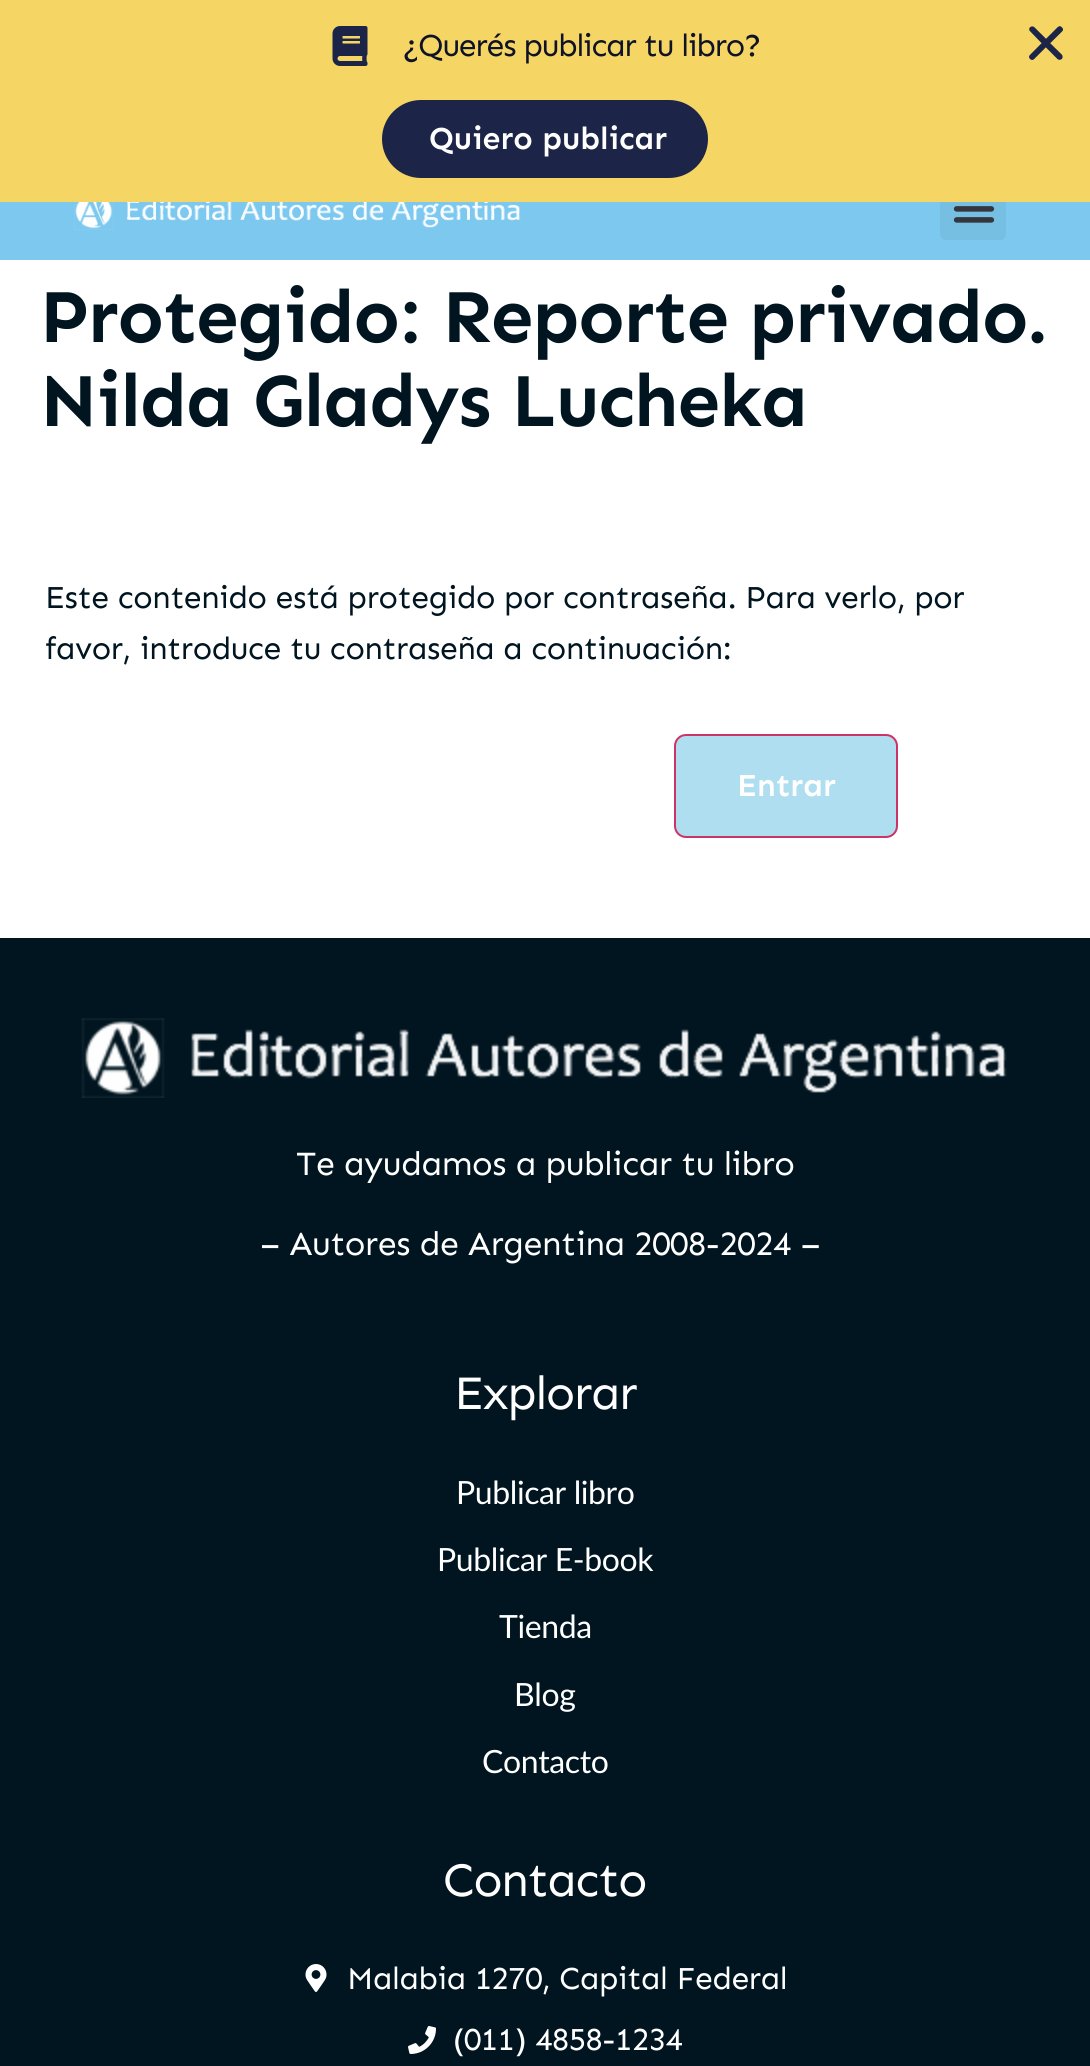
import math
import cairocffi as cairo

surface = cairo.ImageSurface(cairo.FORMAT_RGB24, 1090, 2066)
cr = cairo.Context(surface)
options = cairo.FontOptions()
options.set_hint_metrics(cairo.HINT_METRICS_OFF)
options.set_hint_style(cairo.HINT_STYLE_NONE)
cr.set_font_options(options)
cr.set_miter_limit(4)


def use_color(code):
    cr.set_source_rgb(*(v / 255 for v in bytes.fromhex(code[-6:])))


def spaced_text(x, y, s, letter, word):
    cr.move_to(x, y)
    for ch in s:
        cr.show_text(ch)
        cr.rel_move_to(letter + word * (ch == ' '), 0)


def round_rect(x, y, w, h, r):
    cr.new_sub_path()
    for i, (u, v) in enumerate([(x + w - r, y + h - r), (x + r, y + h - r), (x + r, y + r), (x + w - r, y + r)]):
        cr.arc(u, v, r, i * math.pi / 2, (i + 1) * math.pi / 2)
    cr.close_path()


def picture(path, x, y, w, h):
    cr.save()
    cr.set_source_surface(cairo.ImageSurface.create_from_png(path), x, y)
    cr.rectangle(x, y, w, h)
    cr.fill()
    cr.restore()


use_color("#ffffff")
cr.paint()
use_color("#7dc8ef")
cr.rectangle(0, 202, 1090, 58)
cr.fill()
use_color("#77bee3")
round_rect(940, 174, 66, 66, 6)
cr.fill()
use_color("#f5d665")
cr.rectangle(0, 0, 1090, 202)
cr.fill()
picture("img1.png", 332, 26, 36, 40)
cr.select_font_face("Sen")
cr.set_font_size(32)
use_color("#0f1327")
spaced_text(402, 56, "¿Querés publicar tu libro?", -1.2, 0)
picture("img2.png", 1029, 26, 34, 34)
use_color("#1c2448")
round_rect(382, 100, 326, 78, 39)
cr.fill()
cr.select_font_face("Sen SemiBold")
use_color("#ffffff")
cr.move_to(429, 149)
cr.show_text("Quiero publicar")
picture("img3.png", 74, 202, 447, 28)
picture("img4.png", 953, 206, 42, 17)
cr.select_font_face("Sen", cairo.FONT_SLANT_NORMAL, cairo.FONT_WEIGHT_BOLD)
cr.set_font_size(76)
use_color("#001520")
spaced_text(40, 342, "Protegido: Reporte privado.", -1.2, 0)
spaced_text(40, 426, "Nilda Gladys Lucheka", -1.2, 0)
cr.select_font_face("Sen")
cr.set_font_size(32)
spaced_text(45, 608, "Este contenido está protegido por contraseña. Para verlo, por", -0.4, 0)
spaced_text(45, 659, "favor, introduce tu contraseña a continuación:", -0.4, 0)
use_color("#afdef1")
round_rect(675, 735, 222, 102, 11)
cr.fill_preserve()
use_color("#cc3366")
cr.stroke()
cr.select_font_face("Sen SemiBold")
use_color("#ffffff")
cr.move_to(737, 796)
cr.show_text("Entrar")
use_color("#001520")
cr.rectangle(0, 938, 1090, 1128)
cr.fill()
picture("img5.png", 81, 1018, 926, 80)
cr.select_font_face("Sen")
cr.set_font_size(34)
use_color("#ffffff")
spaced_text(296, 1175, "Te ayudamos a publicar tu libro", -0.4, 0)
spaced_text(260, 1255, "– Autores de Argentina 2008-2024 –", -0.4, 0)
cr.set_font_size(48)
spaced_text(454, 1409, "Explorar", -1.2, 0)
cr.select_font_face("Lato")
cr.set_font_size(32)
spaced_text(456, 1504, "Publicar libro", -0.4, 0)
spaced_text(437, 1571, "Publicar E-book", -0.4, 0)
spaced_text(499, 1638, "Tienda", -0.4, 0)
spaced_text(514, 1706, "Blog", -0.4, 0)
spaced_text(482, 1773, "Contacto", -0.4, 0)
cr.select_font_face("Sen")
cr.set_font_size(48)
spaced_text(443, 1896, "Contacto", -1.2, 0)
picture("img6.png", 305, 1964, 22, 28)
cr.set_font_size(32)
spaced_text(347, 1989, "Malabia 1270, Capital Federal", -0.4, 0)
picture("img7.png", 408, 2026, 28, 28)
spaced_text(453, 2050, "(011) 4858-1234", -0.4, 0)
surface.write_to_png("result.png")
